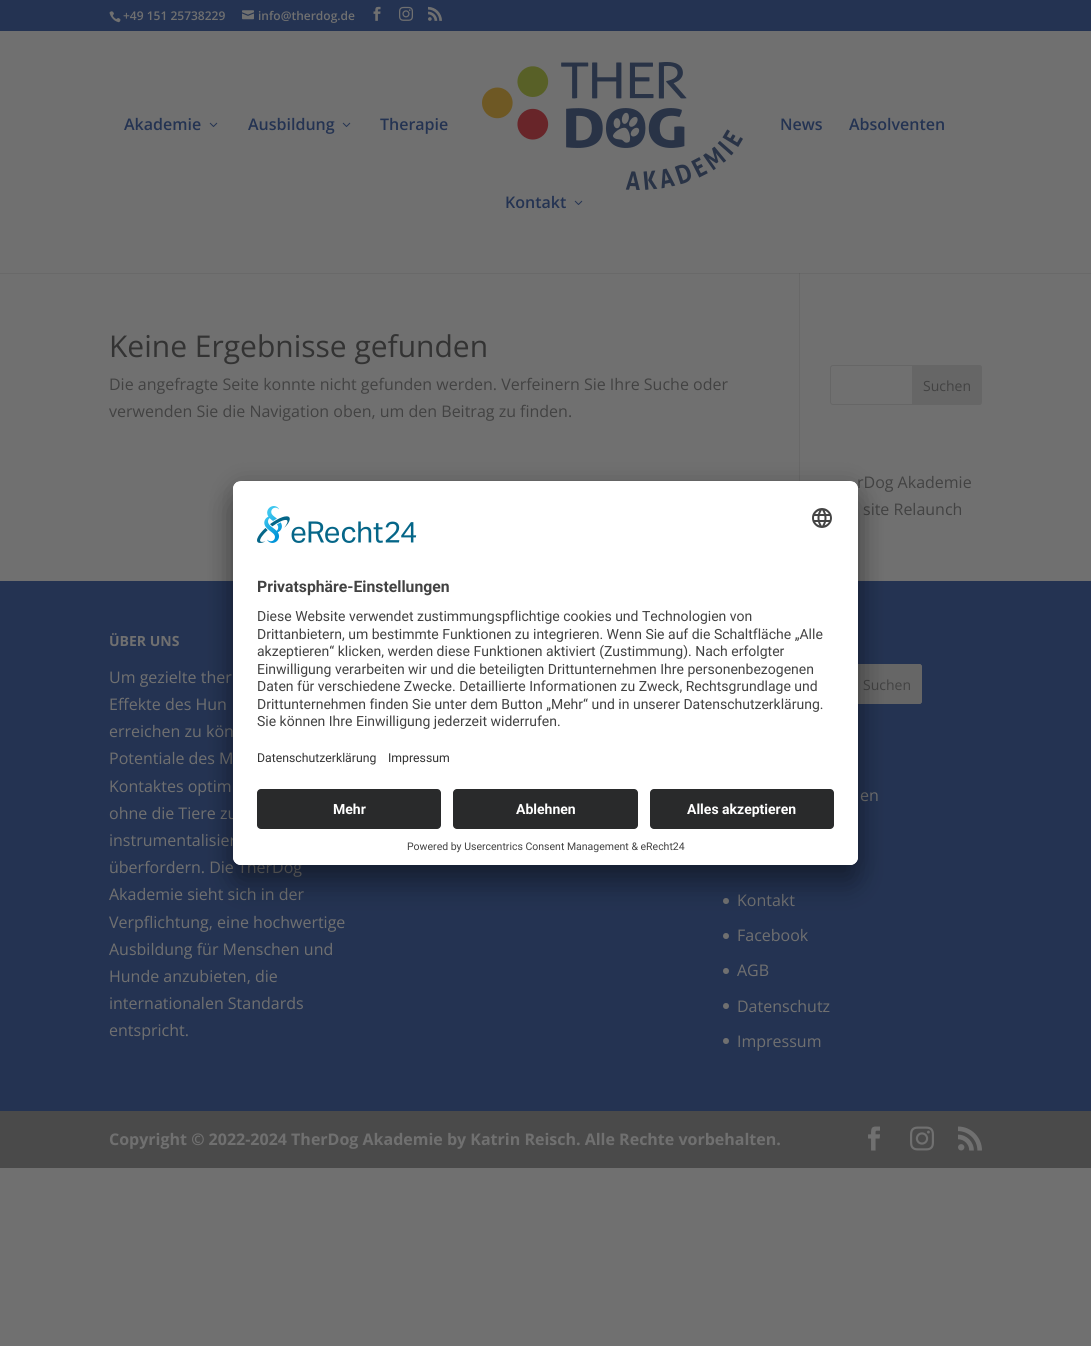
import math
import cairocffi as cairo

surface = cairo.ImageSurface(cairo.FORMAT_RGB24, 1091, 1346)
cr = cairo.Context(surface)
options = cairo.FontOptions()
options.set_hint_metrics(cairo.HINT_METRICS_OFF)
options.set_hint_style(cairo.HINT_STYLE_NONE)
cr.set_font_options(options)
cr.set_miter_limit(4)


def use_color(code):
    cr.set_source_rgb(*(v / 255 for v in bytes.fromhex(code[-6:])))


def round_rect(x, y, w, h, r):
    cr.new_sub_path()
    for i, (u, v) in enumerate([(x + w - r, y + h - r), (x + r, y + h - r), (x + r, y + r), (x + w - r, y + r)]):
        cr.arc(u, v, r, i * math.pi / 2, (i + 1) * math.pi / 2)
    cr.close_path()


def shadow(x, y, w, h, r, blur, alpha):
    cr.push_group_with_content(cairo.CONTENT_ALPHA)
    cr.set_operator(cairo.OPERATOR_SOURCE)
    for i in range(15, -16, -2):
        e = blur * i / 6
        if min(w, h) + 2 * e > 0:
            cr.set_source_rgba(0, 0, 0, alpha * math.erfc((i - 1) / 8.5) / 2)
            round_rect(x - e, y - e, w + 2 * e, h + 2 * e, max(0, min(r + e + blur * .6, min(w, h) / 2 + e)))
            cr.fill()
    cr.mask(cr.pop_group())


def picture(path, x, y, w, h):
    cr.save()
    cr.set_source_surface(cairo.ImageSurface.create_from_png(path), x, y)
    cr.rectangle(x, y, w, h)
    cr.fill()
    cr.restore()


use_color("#707070")
cr.paint()
use_color("#696969")
cr.rectangle(0, 273, 1091, 1)
cr.fill()
use_color("#243352")
cr.rectangle(0, 0, 1091, 31)
cr.fill()
picture("img1.png", 109, 11, 12, 12)
cr.select_font_face("Open Sans SemiBold")
cr.set_font_size(12)
use_color("#707070")
cr.move_to(123, 20)
cr.show_text("+49 151 25738229")
picture("img2.png", 242, 10, 12, 10)
cr.move_to(258, 20)
cr.show_text("info@therdog.de")
picture("img3.png", 373, 6, 8, 15)
picture("img4.png", 399, 6, 14, 15)
picture("img5.png", 428, 6, 14, 15)
cr.set_font_size(16)
use_color("#243352")
cr.move_to(124, 130)
cr.show_text("Akademie")
picture("img6.png", 209, 122, 9, 5)
cr.move_to(248, 130)
cr.show_text("Ausbildung")
picture("img6.png", 342, 122, 9, 5)
cr.move_to(380, 130)
cr.show_text("Therapie")
picture("img7.png", 482, 62, 261, 128)
cr.move_to(780, 130)
cr.show_text("News")
cr.move_to(849, 130)
cr.show_text("Absolventen")
cr.move_to(505, 208)
cr.show_text("Kontakt")
picture("img6.png", 574, 200, 9, 5)
use_color("#686868")
cr.rectangle(799, 273, 1, 208)
cr.fill()
use_color("#616161")
cr.rectangle(799, 273, 1, 1)
cr.fill()
cr.select_font_face("Open Sans")
cr.set_font_size(30)
use_color("#333333")
cr.move_to(109, 357)
cr.show_text("Keine Ergebnisse gefunden")
cr.set_font_size(16)
use_color("#424242")
cr.move_to(109, 390)
cr.show_text("Die angefragte Seite konnte nicht gefunden werden. Verfeinern Sie Ihre Suche oder")
cr.move_to(109, 417)
cr.show_text("verwenden Sie die Navigation oben, um den Beitrag zu finden.")
round_rect(830.5, 365.5, 151, 39, 2.5)
use_color("#666666")
cr.set_line_width(1)
cr.stroke()
cr.new_path()
cr.move_to(912, 365)
cr.line_to(979, 365)
cr.curve_to(980.5, 365, 982, 366.5, 982, 368)
cr.line_to(982, 402)
cr.curve_to(982, 403.5, 980.5, 405, 979, 405)
cr.line_to(912, 405)
cr.close_path()
cr.fill()
cr.set_font_size(14)
use_color("#424242")
cr.move_to(923, 391)
cr.show_text("Suchen")
cr.set_font_size(16)
cr.move_to(857, 488)
cr.show_text("rDog Akademie")
cr.move_to(863, 515)
cr.show_text("site Relaunch")
use_color("#243352")
cr.rectangle(0, 581, 1091, 530)
cr.fill()
cr.select_font_face("Open Sans", cairo.FONT_SLANT_NORMAL, cairo.FONT_WEIGHT_BOLD)
cr.set_font_size(14)
use_color("#707070")
cr.move_to(109, 646)
cr.show_text("ÜBER UNS")
cr.select_font_face("Open Sans")
cr.set_font_size(16)
cr.move_to(109, 683)
cr.show_text("Um gezielte ther")
cr.move_to(109, 710)
cr.show_text("Effekte des Hun")
cr.move_to(109, 737)
cr.show_text("erreichen zu kön")
cr.move_to(109, 764)
cr.show_text("Potentiale des M")
cr.move_to(109, 792)
cr.show_text("Kontaktes optim")
cr.move_to(109, 819)
cr.show_text("ohne die Tiere zu")
cr.move_to(109, 846)
cr.show_text("instrumentalisier")
cr.move_to(109, 873)
cr.show_text("überfordern. Die TherDog")
cr.move_to(109, 900)
cr.show_text("Akademie sieht sich in der")
cr.move_to(109, 928)
cr.show_text("Verpflichtung, eine hochwertige")
cr.move_to(109, 955)
cr.show_text("Ausbildung für Menschen und")
cr.move_to(109, 982)
cr.show_text("Hunde anzubieten, die")
cr.move_to(109, 1009)
cr.show_text("internationalen Standards")
cr.move_to(109, 1036)
cr.show_text("entspricht.")
round_rect(723.5, 664.5, 198, 39, 2.5)
use_color("#666666")
cr.stroke()
cr.new_path()
cr.move_to(852.5, 664.5)
cr.line_to(919, 664.5)
cr.curve_to(920.5, 664.5, 921.5, 665.5, 921.5, 667)
cr.line_to(921.5, 701)
cr.curve_to(921.5, 702.5, 920.5, 703.5, 919, 703.5)
cr.line_to(852.5, 703.5)
cr.close_path()
cr.fill_preserve()
cr.stroke()
cr.set_font_size(14)
use_color("#424242")
cr.move_to(863, 690)
cr.show_text("Suchen")
cr.set_font_size(16)
use_color("#707070")
cr.move_to(860, 801)
cr.show_text("en")
cr.new_path()
cr.arc(726, 901, 3, 0, 2 * math.pi)
cr.fill()
cr.move_to(737, 906)
cr.show_text("Kontakt")
cr.new_path()
cr.arc(726, 936, 3, 0, 2 * math.pi)
cr.fill()
cr.move_to(737, 941)
cr.show_text("Facebook")
cr.new_path()
cr.arc(726, 971, 3, 0, 2 * math.pi)
cr.fill()
cr.move_to(737, 976)
cr.show_text("AGB")
cr.new_path()
cr.arc(726, 1006, 3, 0, 2 * math.pi)
cr.fill()
cr.move_to(737, 1012)
cr.show_text("Datenschutz")
cr.new_path()
cr.arc(726, 1041, 3, 0, 2 * math.pi)
cr.fill()
cr.move_to(737, 1047)
cr.show_text("Impressum")
use_color("#4a4a4a")
cr.rectangle(0, 1111, 1091, 57)
cr.fill()
cr.select_font_face("Open Sans", cairo.FONT_SLANT_NORMAL, cairo.FONT_WEIGHT_BOLD)
use_color("#707070")
cr.move_to(109, 1145)
cr.show_text("Copyright © 2022-2024 TherDog Akademie by Katrin Reisch. Alle Rechte vorbehalten.")
picture("img8.png", 868, 1126, 12, 25)
picture("img9.png", 910, 1126, 24, 25)
picture("img10.png", 958, 1126, 24, 25)
use_color("#000000")
shadow(233, 501, 625, 384, 8, 14, 0.3)
shadow(233, 486, 625, 384, 8, 13, 0.22)
use_color("#ffffff")
round_rect(233, 481, 625, 384, 8)
cr.fill()
cr.save()
round_rect(233, 481, 625, 384, 8)
cr.clip()
cr.new_path()
cr.move_to(241, 481)
cr.line_to(850, 481)
cr.curve_to(854.5, 481, 858, 484.5, 858, 489)
cr.line_to(858, 781)
cr.line_to(233, 781)
cr.line_to(233, 489)
cr.curve_to(233, 484.5, 236.5, 481, 241, 481)
cr.close_path()
cr.clip()
cr.rectangle(233, 482, 625, 299)
cr.fill()
cr.restore()
picture("img11.png", 257, 506, 160, 37)
picture("img12.png", 812, 508, 20, 20)
cr.select_font_face("Roboto", cairo.FONT_SLANT_NORMAL, cairo.FONT_WEIGHT_BOLD)
cr.set_font_size(15.75)
use_color("#424242")
cr.move_to(257, 592)
cr.show_text("Privatsphäre-Einstellungen")
cr.select_font_face("Roboto")
cr.set_font_size(14)
cr.move_to(257, 621)
cr.show_text("Diese Website verwendet zustimmungspflichtige cookies und Technologien von")
cr.move_to(257, 639)
cr.show_text("Drittanbietern, um bestimmte Funktionen zu integrieren. Wenn Sie auf die Schaltfläche „Alle")
cr.move_to(257, 656)
cr.show_text("akzeptieren“ klicken, werden diese Funktionen aktiviert (Zustimmung). Nach erfolgter")
cr.move_to(257, 674)
cr.show_text("Einwilligung verarbeiten wir und die beteiligten Drittunternehmen Ihre personenbezogenen")
cr.move_to(257, 691)
cr.show_text("Daten für verschiedene Zwecke. Detaillierte Informationen zu Zweck, Rechtsgrundlage und")
cr.move_to(257, 709)
cr.show_text("Drittunternehmen finden Sie unter dem Button „Mehr“ und in unserer Datenschutzerklärung.")
cr.move_to(257, 726)
cr.show_text("Sie können Ihre Einwilligung jederzeit widerrufen.")
cr.set_font_size(12.25)
use_color("#333333")
cr.move_to(257, 762)
cr.show_text("Datenschutzerklärung")
cr.move_to(388, 762)
cr.show_text("Impressum")
use_color("#ffffff")
cr.new_path()
cr.move_to(233, 781)
cr.line_to(858, 781)
cr.line_to(858, 857)
cr.curve_to(858, 861.5, 854.5, 865, 850, 865)
cr.line_to(241, 865)
cr.curve_to(236.5, 865, 233, 861.5, 233, 857)
cr.close_path()
cr.fill()
use_color("#292a2b")
round_rect(257, 789, 184, 40, 4)
cr.fill()
cr.select_font_face("Roboto", cairo.FONT_SLANT_NORMAL, cairo.FONT_WEIGHT_BOLD)
cr.set_font_size(14)
use_color("#ffffff")
cr.move_to(333, 814)
cr.show_text("Mehr")
use_color("#292a2b")
round_rect(453, 789, 185, 40, 4)
cr.fill()
use_color("#ffffff")
cr.move_to(516, 814)
cr.show_text("Ablehnen")
use_color("#292a2b")
round_rect(650, 789, 184, 40, 4)
cr.fill()
use_color("#ffffff")
cr.move_to(687, 814)
cr.show_text("Alles akzeptieren")
cr.select_font_face("Roboto")
cr.set_font_size(10.5)
use_color("#424242")
cr.move_to(407, 850)
cr.show_text("Powered by Usercentrics Consent Management & eRecht24")
surface.write_to_png("result.png")
